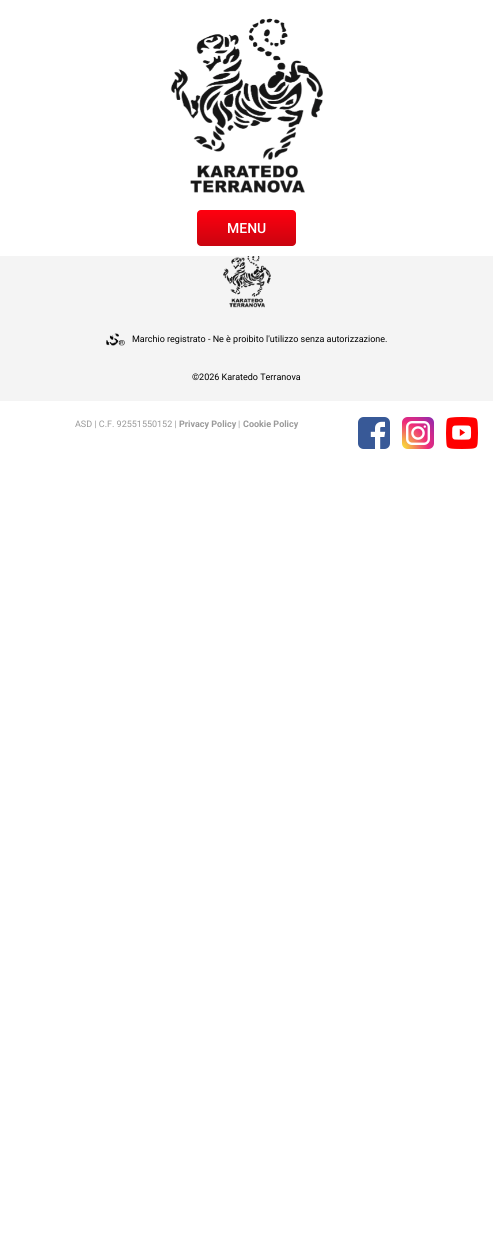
import math
import cairocffi as cairo

surface = cairo.ImageSurface(cairo.FORMAT_RGB24, 493, 1250)
cr = cairo.Context(surface)
options = cairo.FontOptions()
options.set_hint_metrics(cairo.HINT_METRICS_OFF)
options.set_hint_style(cairo.HINT_STYLE_NONE)
cr.set_font_options(options)
cr.set_miter_limit(4)


def use_color(code):
    cr.set_source_rgb(*(v / 255 for v in bytes.fromhex(code[-6:])))


def round_rect(x, y, w, h, r):
    cr.new_sub_path()
    for i, (u, v) in enumerate([(x + w - r, y + h - r), (x + r, y + h - r), (x + r, y + r), (x + w - r, y + r)]):
        cr.arc(u, v, r, i * math.pi / 2, (i + 1) * math.pi / 2)
    cr.close_path()


def picture(path, x, y, w, h):
    cr.save()
    cr.set_source_surface(cairo.ImageSurface.create_from_png(path), x, y)
    cr.rectangle(x, y, w, h)
    cr.fill()
    cr.restore()


use_color("#ffffff")
cr.paint()
picture("img1.png", 170, 18, 153, 175)
gradient = cairo.LinearGradient(247, 210, 247, 246)
gradient.add_color_stop_rgba(0, 1, 0, 0.059, 1)
gradient.add_color_stop_rgba(1, 0.788, 0.016, 0.059, 1)
cr.set_source(gradient)
round_rect(197, 210, 99, 36, 4)
cr.fill()
cr.select_font_face("Roboto Medium")
cr.set_font_size(14)
use_color("#ffffff")
cr.move_to(227, 233)
cr.show_text("MENU")
use_color("#f4f4f4")
cr.rectangle(0, 256, 493, 145)
cr.fill()
picture("img2.png", 223, 256, 48, 52)
picture("img3.png", 106, 333, 19, 13)
cr.select_font_face("Roboto")
cr.set_font_size(9)
use_color("#000000")
cr.move_to(132, 342)
cr.show_text("Marchio registrato - Ne è proibito l'utilizzo senza autorizzazione.")
cr.move_to(192, 380)
cr.show_text("©2026 Karatedo Terranova")
use_color("#999999")
cr.move_to(75, 427)
cr.show_text("ASD | C.F. 92551550152 |")
cr.select_font_face("Roboto", cairo.FONT_SLANT_NORMAL, cairo.FONT_WEIGHT_BOLD)
cr.move_to(179, 427)
cr.show_text("Privacy Policy")
cr.select_font_face("Roboto")
cr.move_to(238, 427)
cr.show_text("|")
cr.select_font_face("Roboto", cairo.FONT_SLANT_NORMAL, cairo.FONT_WEIGHT_BOLD)
cr.move_to(243, 427)
cr.show_text("Cookie Policy")
picture("img4.png", 358, 417, 32, 32)
picture("img5.png", 402, 417, 32, 32)
picture("img6.png", 446, 417, 32, 32)
surface.write_to_png("result.png")
